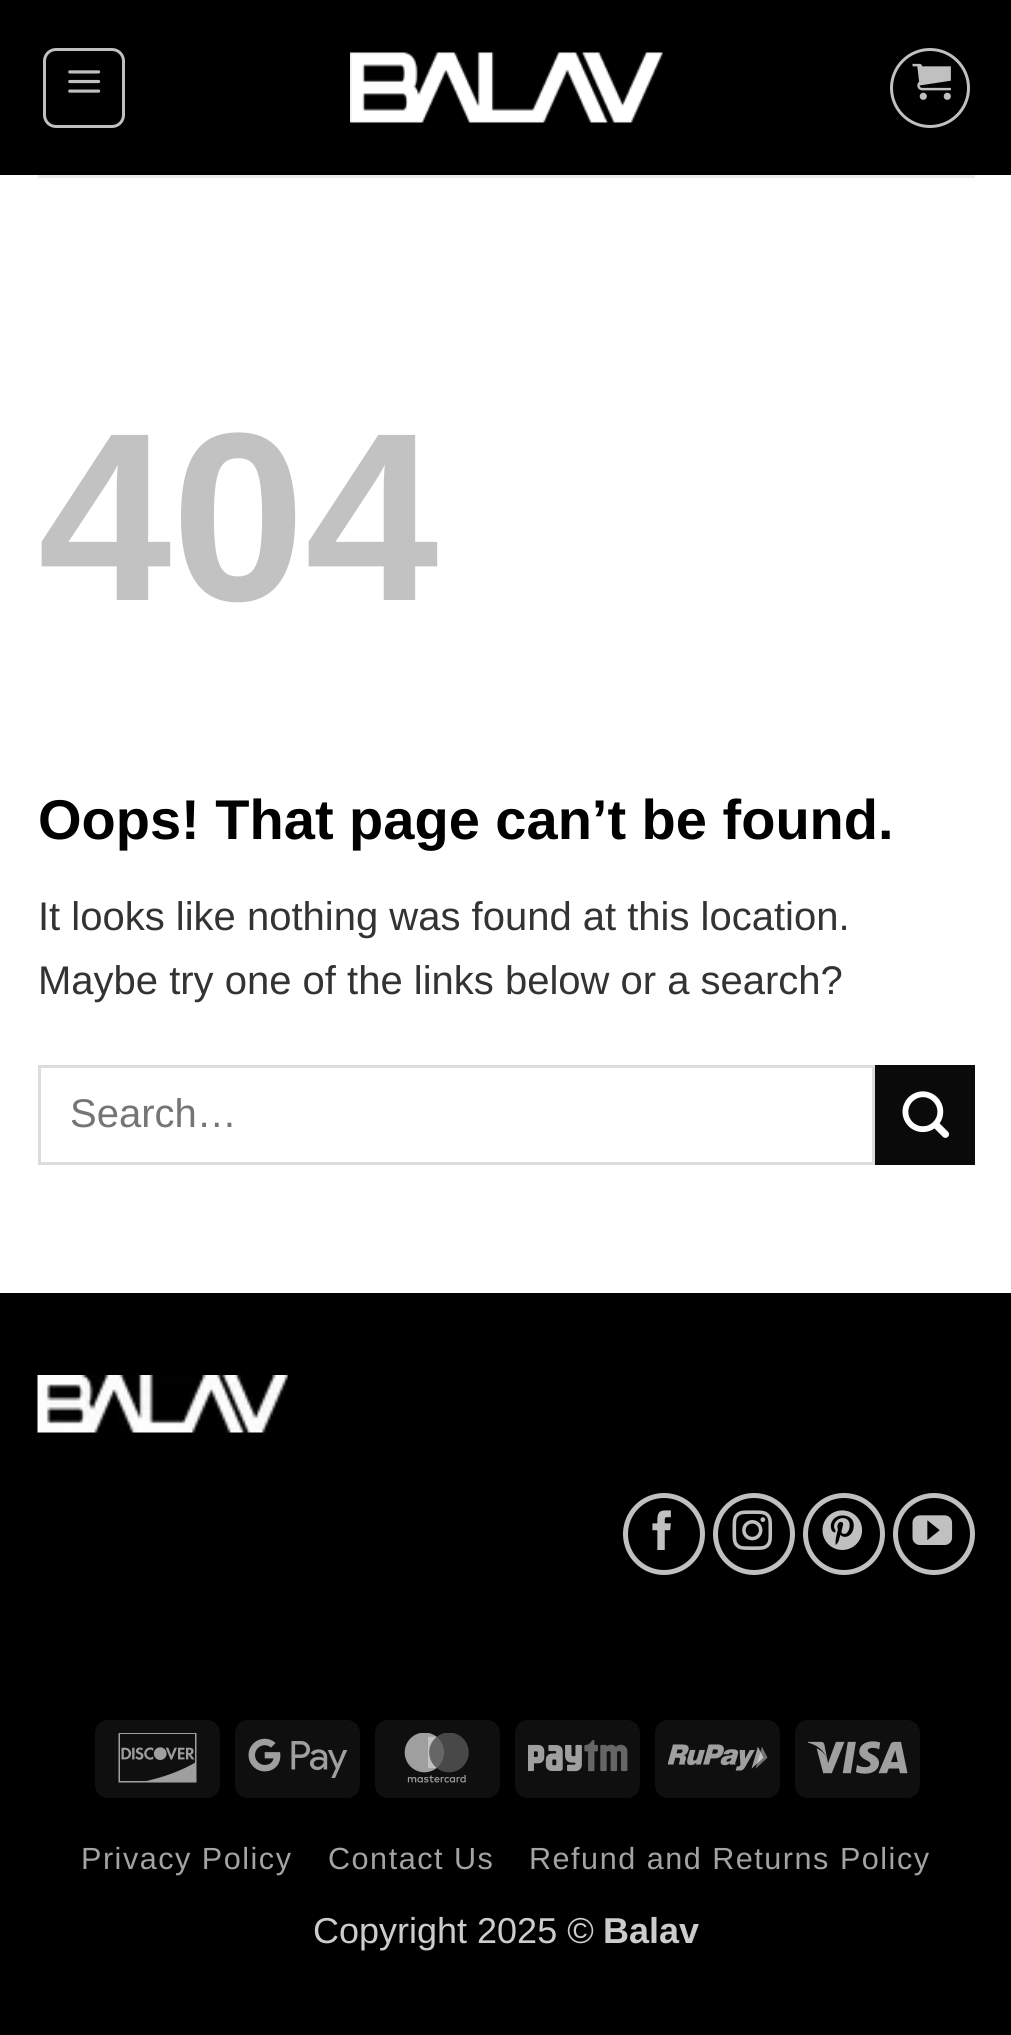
import math
import cairocffi as cairo

surface = cairo.ImageSurface(cairo.FORMAT_RGB24, 1011, 2035)
cr = cairo.Context(surface)
options = cairo.FontOptions()
options.set_hint_metrics(cairo.HINT_METRICS_OFF)
options.set_hint_style(cairo.HINT_STYLE_NONE)
cr.set_font_options(options)
cr.set_miter_limit(4)


def use_color(code):
    cr.set_source_rgb(*(v / 255 for v in bytes.fromhex(code[-6:])))


def spaced_text(x, y, s, letter, word):
    cr.move_to(x, y)
    for ch in s:
        cr.show_text(ch)
        cr.rel_move_to(letter + word * (ch == ' '), 0)


def round_rect(x, y, w, h, r):
    cr.new_sub_path()
    for i, (u, v) in enumerate([(x + w - r, y + h - r), (x + r, y + h - r), (x + r, y + r), (x + w - r, y + r)]):
        cr.arc(u, v, r, i * math.pi / 2, (i + 1) * math.pi / 2)
    cr.close_path()


def picture(path, x, y, w, h):
    cr.save()
    cr.set_source_surface(cairo.ImageSurface.create_from_png(path), x, y)
    cr.rectangle(x, y, w, h)
    cr.fill()
    cr.restore()


use_color("#000000")
cr.paint()
use_color("#ffffff")
cr.rectangle(0, 175, 1011, 1118)
cr.fill()
round_rect(44.5, 49.5, 79, 77, 11.5)
use_color("#c0c0c0")
cr.set_line_width(3)
cr.stroke()
picture("img1.png", 68, 70, 33, 23)
picture("img2.png", 350, 52, 313, 71)
cr.arc(930, 88, 38.5, 0, 2 * math.pi)
cr.stroke()
picture("img3.png", 912, 63, 39, 37)
use_color("#ebebeb")
cr.rectangle(38, 175, 937, 3)
cr.fill()
cr.select_font_face("Liberation Sans", cairo.FONT_SLANT_NORMAL, cairo.FONT_WEIGHT_BOLD)
cr.set_font_size(240)
use_color("#c2c2c2")
cr.move_to(38, 600)
cr.show_text("404")
cr.set_font_size(56)
use_color("#000000")
cr.move_to(38, 839)
cr.show_text("Oops! That page can’t be found.")
cr.select_font_face("Liberation Sans")
cr.set_font_size(40)
use_color("#333333")
cr.move_to(38, 930)
cr.show_text("It looks like nothing was found at this location.")
cr.move_to(38, 994)
cr.show_text("Maybe try one of the links below or a search?")
cr.rectangle(39.5, 1066.5, 834, 97)
use_color("#dddddd")
cr.stroke()
use_color("#757575")
cr.move_to(70, 1127)
cr.show_text("Search…")
use_color("#0a0a0a")
cr.rectangle(875, 1065, 100, 100)
cr.fill()
picture("img4.png", 902, 1091, 47, 47)
picture("img5.png", 37, 1375, 251, 58)
cr.arc(664, 1534, 38.5, 0, 2 * math.pi)
use_color("#c0c0c0")
cr.set_line_width(5)
cr.stroke()
picture("img6.png", 652, 1510, 19, 40)
cr.arc(754, 1534, 38.5, 0, 2 * math.pi)
cr.stroke()
picture("img7.png", 732, 1510, 41, 40)
cr.arc(844, 1534, 38.5, 0, 2 * math.pi)
cr.stroke()
picture("img8.png", 822, 1510, 41, 40)
cr.arc(934, 1534, 38.5, 0, 2 * math.pi)
cr.stroke()
picture("img9.png", 912, 1515, 41, 30)
use_color("#0f0f0f")
round_rect(95, 1720, 125, 78, 13)
cr.fill()
picture("img10.png", 118, 1733, 79, 50)
round_rect(235, 1720, 125, 78, 13)
cr.fill()
picture("img11.png", 248, 1738, 100, 40)
round_rect(375, 1720, 125, 78, 13)
cr.fill()
picture("img12.png", 404, 1733, 65, 50)
round_rect(515, 1720, 125, 78, 13)
cr.fill()
picture("img13.png", 528, 1740, 100, 32)
round_rect(655, 1720, 125, 78, 13)
cr.fill()
picture("img14.png", 668, 1744, 100, 27)
round_rect(795, 1720, 125, 78, 13)
cr.fill()
picture("img15.png", 808, 1741, 100, 33)
cr.set_font_size(30.6)
use_color("#a3a3a3")
spaced_text(81, 1869, "Privacy Policy", 1.5, 0)
spaced_text(328, 1869, "Contact Us", 1.5, 0)
spaced_text(529, 1869, "Refund and Returns Policy", 1.5, 0)
cr.set_font_size(36)
use_color("#cccccc")
cr.move_to(313, 1943)
cr.show_text("Copyright 2025 ©")
cr.select_font_face("Liberation Sans", cairo.FONT_SLANT_NORMAL, cairo.FONT_WEIGHT_BOLD)
cr.move_to(603, 1943)
cr.show_text("Balav")
surface.write_to_png("result.png")
